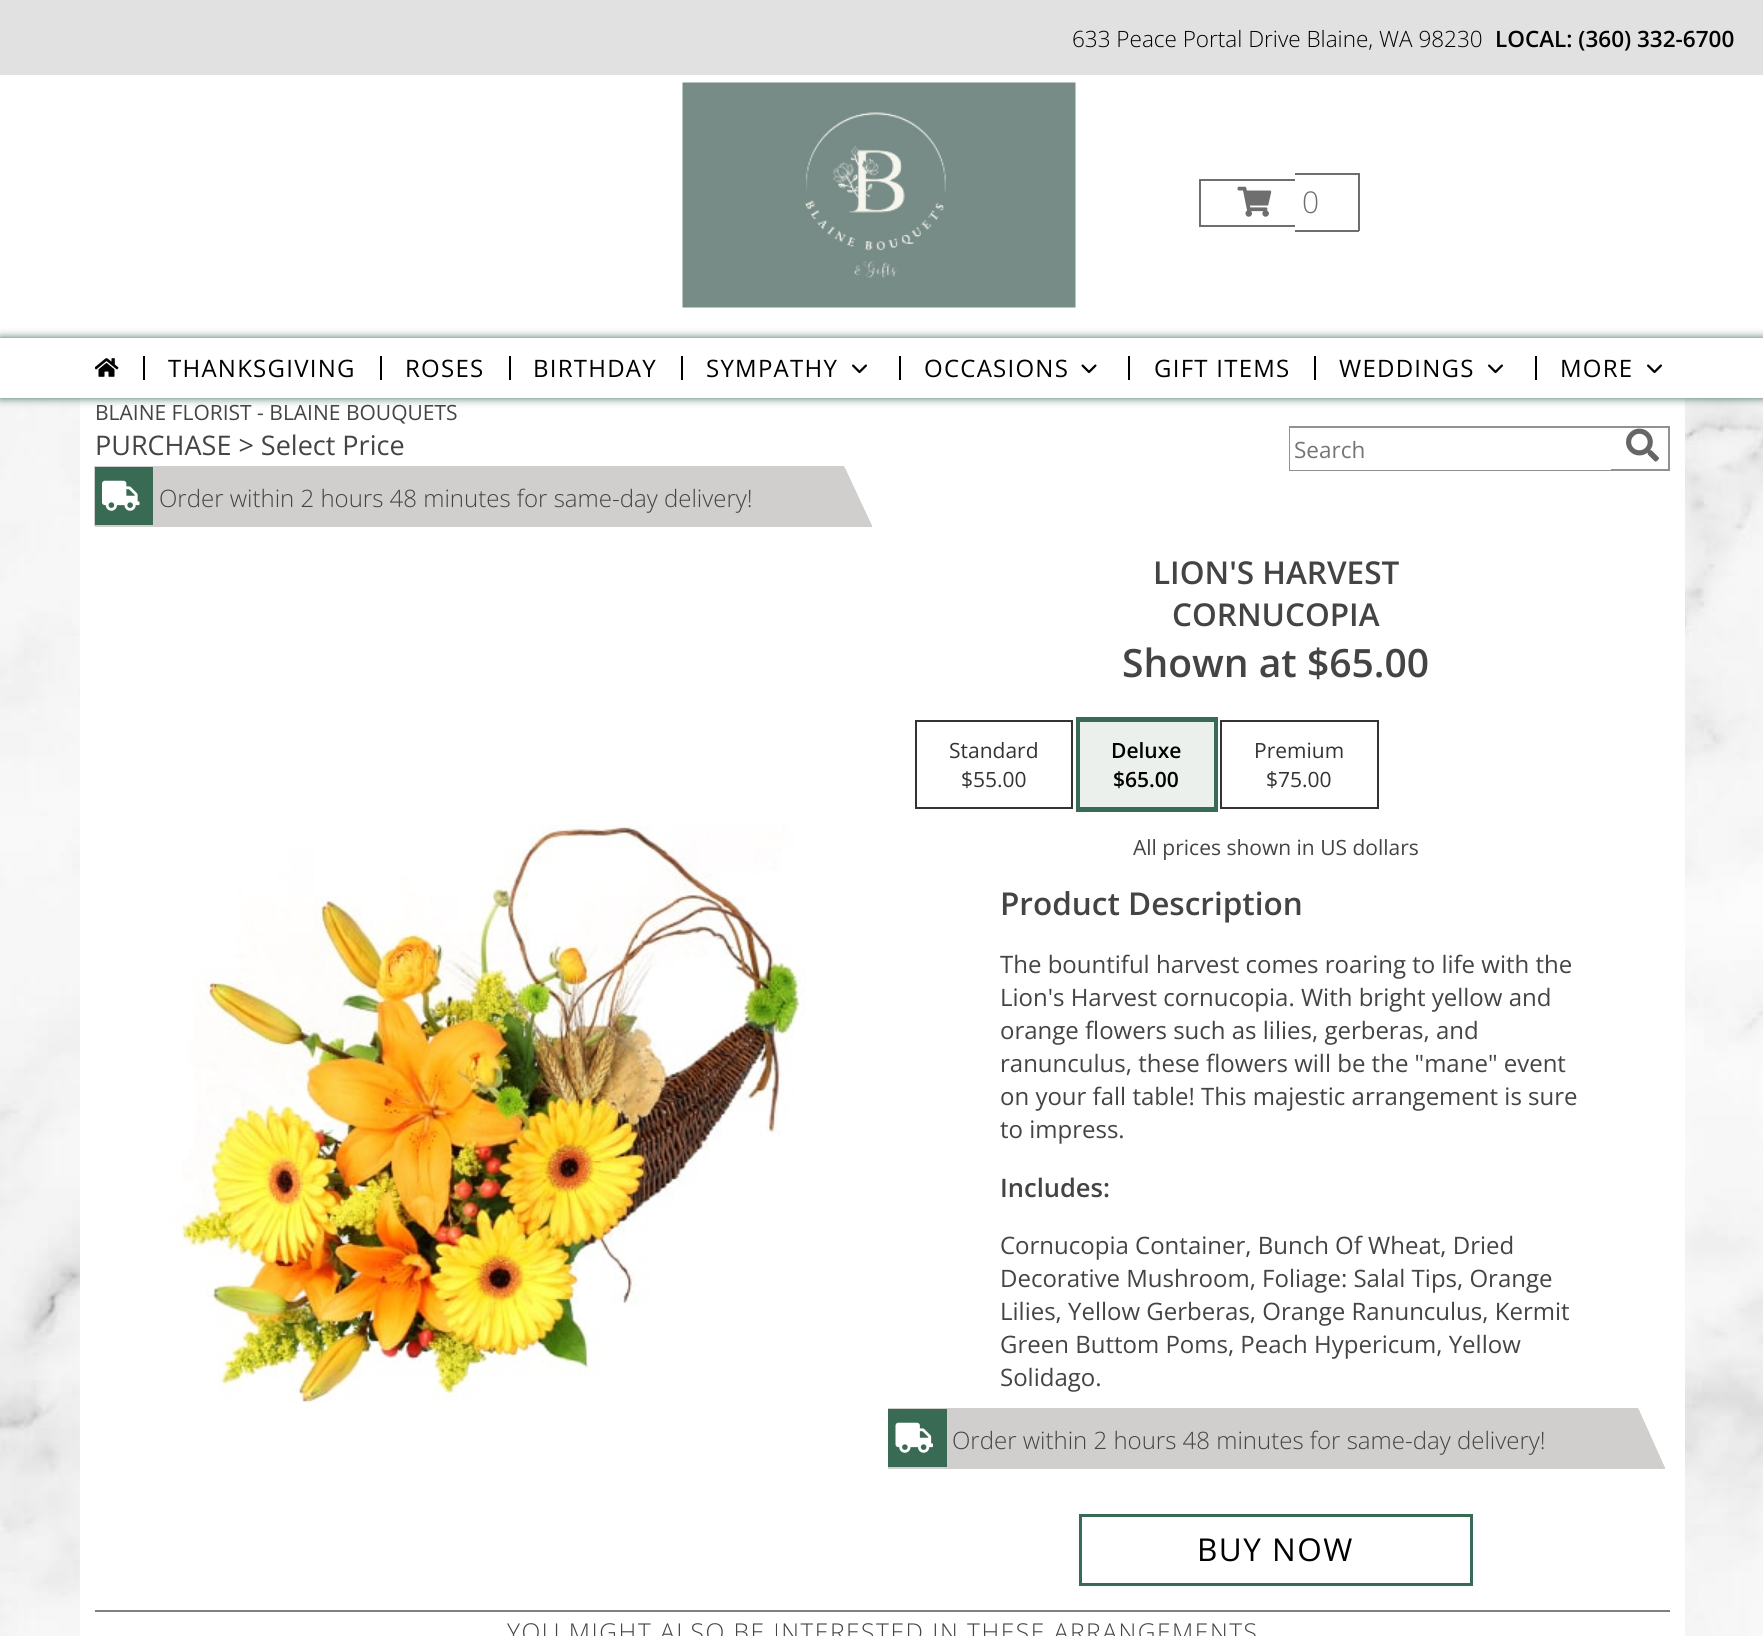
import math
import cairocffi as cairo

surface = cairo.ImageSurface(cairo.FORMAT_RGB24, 1763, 1636)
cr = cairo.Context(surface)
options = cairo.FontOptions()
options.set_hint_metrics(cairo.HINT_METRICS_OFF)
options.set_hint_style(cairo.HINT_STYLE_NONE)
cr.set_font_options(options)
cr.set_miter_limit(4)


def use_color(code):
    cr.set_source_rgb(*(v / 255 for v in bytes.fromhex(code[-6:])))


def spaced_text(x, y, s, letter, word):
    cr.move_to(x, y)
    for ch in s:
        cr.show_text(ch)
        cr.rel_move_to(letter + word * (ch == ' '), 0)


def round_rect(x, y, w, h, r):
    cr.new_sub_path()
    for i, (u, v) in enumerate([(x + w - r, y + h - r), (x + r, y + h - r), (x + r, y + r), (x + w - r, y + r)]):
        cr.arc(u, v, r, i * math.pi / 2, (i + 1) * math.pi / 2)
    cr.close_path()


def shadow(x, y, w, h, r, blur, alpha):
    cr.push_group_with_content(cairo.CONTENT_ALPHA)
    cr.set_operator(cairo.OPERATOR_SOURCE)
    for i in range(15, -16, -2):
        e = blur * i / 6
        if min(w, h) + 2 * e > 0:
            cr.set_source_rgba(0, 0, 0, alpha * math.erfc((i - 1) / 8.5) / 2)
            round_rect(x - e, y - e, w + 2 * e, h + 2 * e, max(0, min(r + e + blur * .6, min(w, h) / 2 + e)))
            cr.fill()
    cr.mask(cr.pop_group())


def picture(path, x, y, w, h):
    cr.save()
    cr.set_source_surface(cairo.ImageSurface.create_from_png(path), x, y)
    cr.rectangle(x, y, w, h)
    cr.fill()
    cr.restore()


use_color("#ffffff")
cr.paint()
picture("img1.png", 0, 398, 1763, 1238)
use_color("#ffffff")
cr.rectangle(80, 398, 1605, 1238)
cr.fill()
use_color("#e1e1e1")
cr.rectangle(0, 0, 1763, 75)
cr.fill()
cr.select_font_face("Open Sans Light")
cr.set_font_size(22.5)
use_color("#000000")
cr.move_to(1072, 47)
cr.show_text("633 Peace Portal Drive Blaine, WA 98230")
cr.select_font_face("Open Sans SemiBold")
cr.move_to(1495, 47)
cr.show_text("LOCAL: (360) 332-6700")
picture("img2.png", 682, 82, 394, 226)
use_color("#6e6e6e")
cr.rectangle(1199, 179, 96, 2)
cr.fill()
cr.rectangle(1199, 225, 96, 2)
cr.fill()
cr.rectangle(1199, 179, 2, 48)
cr.fill()
cr.rectangle(1295, 173, 64, 2)
cr.fill()
cr.rectangle(1295, 230, 7, 2)
cr.fill()
cr.rectangle(1358, 173, 2, 58)
cr.fill()
cr.rectangle(1302, 230, 57, 2)
cr.fill()
picture("img3.png", 1237, 186, 35, 31)
cr.select_font_face("Open Sans Light")
cr.set_font_size(30)
cr.move_to(1302, 213)
cr.show_text("0")
use_color("#396a53")
shadow(0, 338, 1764, 60, 0, 4.5, 1)
use_color("#ffffff")
cr.rectangle(0, 338, 1763, 60)
cr.fill()
picture("img4.png", 95, 358, 24, 19)
use_color("#000000")
cr.rectangle(143, 356, 2, 24)
cr.fill()
cr.select_font_face("Open Sans")
cr.set_font_size(24)
spaced_text(168, 377, "THANKSGIVING", 1.25, 0)
cr.rectangle(380, 356, 2, 24)
cr.fill()
spaced_text(405, 377, "ROSES", 1.25, 0)
cr.rectangle(509, 356, 2, 24)
cr.fill()
spaced_text(533, 377, "BIRTHDAY", 1.25, 0)
cr.rectangle(681, 356, 2, 24)
cr.fill()
spaced_text(706, 377, "SYMPATHY", 1.25, 0)
picture("img5.png", 852, 364, 15, 10)
cr.rectangle(899, 356, 2, 24)
cr.fill()
spaced_text(924, 377, "OCCASIONS", 1.25, 0)
picture("img6.png", 1081, 364, 16, 10)
cr.rectangle(1128, 356, 2, 24)
cr.fill()
spaced_text(1154, 377, "GIFT ITEMS", 1.25, 0)
cr.rectangle(1314, 356, 2, 24)
cr.fill()
spaced_text(1339, 377, "WEDDINGS", 1.25, 0)
picture("img5.png", 1488, 364, 15, 10)
cr.rectangle(1535, 356, 2, 24)
cr.fill()
spaced_text(1560, 377, "MORE", 1.25, 0)
picture("img5.png", 1647, 364, 15, 10)
cr.set_font_size(21)
use_color("#444444")
cr.move_to(95, 420)
cr.show_text("BLAINE FLORIST - BLAINE BOUQUETS")
cr.set_font_size(27)
cr.move_to(95, 455)
cr.show_text("PURCHASE > Select Price")
cr.rectangle(1290, 427, 379, 43)
use_color("#919191")
cr.stroke()
use_color("#ffffff")
cr.rectangle(1290, 428, 321, 42)
cr.fill()
cr.set_font_size(22.5)
use_color("#757575")
cr.move_to(1294, 458)
cr.show_text("Search")
picture("img7.png", 1626, 428, 33, 34)
use_color("#d0cfcd")
cr.rectangle(95, 467, 777, 60)
cr.fill()
use_color("#ffffff")
cr.new_path()
cr.move_to(872, 466)
cr.line_to(872, 526)
cr.line_to(844, 466)
cr.close_path()
cr.fill()
use_color("#d0cfcd")
cr.new_path()
cr.move_to(872, 526)
cr.line_to(94, 526)
cr.line_to(94, 466)
cr.line_to(844, 466)
cr.close_path()
cr.fill()
use_color("#396a53")
cr.rectangle(95, 467, 58, 58)
cr.fill()
picture("img8.png", 102, 480, 38, 31)
cr.select_font_face("Open Sans Light")
cr.set_font_size(24)
use_color("#444444")
cr.move_to(159, 507)
cr.show_text("Order within 2 hours 48 minutes for same-day delivery!")
picture("img9.png", 170, 825, 636, 578)
cr.select_font_face("Open Sans SemiBold")
cr.set_font_size(31.5)
cr.move_to(1153, 584)
cr.show_text("LION'S HARVEST")
cr.move_to(1172, 626)
cr.show_text("CORNUCOPIA")
cr.set_font_size(39)
cr.move_to(1122, 677)
cr.show_text("Shown at $65.00")
cr.rectangle(916, 721, 156, 87)
use_color("#333333")
cr.stroke()
cr.select_font_face("Open Sans")
cr.set_font_size(21)
cr.move_to(949, 758)
cr.show_text("Standard")
cr.move_to(961, 787)
cr.show_text("$55.00")
cr.rectangle(1078.5, 719.5, 137, 90)
use_color("#396a53")
cr.set_line_width(5)
cr.stroke()
use_color("#ebf0ed")
cr.rectangle(1080, 722, 134, 85)
cr.fill()
cr.select_font_face("Open Sans SemiBold")
use_color("#000000")
cr.move_to(1111, 758)
cr.show_text("Deluxe")
cr.move_to(1113, 787)
cr.show_text("$65.00")
cr.rectangle(1221, 721, 157, 87)
use_color("#333333")
cr.set_line_width(2)
cr.stroke()
cr.select_font_face("Open Sans")
cr.move_to(1254, 758)
cr.show_text("Premium")
cr.move_to(1266, 787)
cr.show_text("$75.00")
use_color("#444444")
cr.move_to(1133, 855)
cr.show_text("All prices shown in US dollars")
cr.select_font_face("Open Sans SemiBold")
cr.set_font_size(31.5)
cr.move_to(1000, 915)
cr.show_text("Product Description")
cr.select_font_face("Open Sans")
cr.set_font_size(24)
cr.move_to(1000, 973)
cr.show_text("The bountiful harvest comes roaring to life with the")
cr.move_to(1000, 1006)
cr.show_text("Lion's Harvest cornucopia. With bright yellow and")
cr.move_to(1000, 1039)
cr.show_text("orange flowers such as lilies, gerberas, and")
cr.move_to(1000, 1072)
cr.show_text("ranunculus, these flowers will be the \"mane\" event")
cr.move_to(1000, 1105)
cr.show_text("on your fall table! This majestic arrangement is sure")
cr.move_to(1000, 1138)
cr.show_text("to impress.")
cr.select_font_face("Open Sans SemiBold")
cr.set_font_size(25.5)
cr.move_to(1000, 1197)
cr.show_text("Includes:")
cr.select_font_face("Open Sans")
cr.set_font_size(24)
cr.move_to(1000, 1254)
cr.show_text("Cornucopia Container, Bunch Of Wheat, Dried")
cr.move_to(1000, 1287)
cr.show_text("Decorative Mushroom, Foliage: Salal Tips, Orange")
cr.move_to(1000, 1320)
cr.show_text("Lilies, Yellow Gerberas, Orange Ranunculus, Kermit")
cr.move_to(1000, 1353)
cr.show_text("Green Buttom Poms, Peach Hypericum, Yellow")
cr.move_to(1000, 1386)
cr.show_text("Solidago.")
use_color("#d0cfcd")
cr.rectangle(888, 1409, 777, 60)
cr.fill()
use_color("#ffffff")
cr.new_path()
cr.move_to(1665, 1408)
cr.line_to(1665, 1468)
cr.line_to(1638, 1408)
cr.close_path()
cr.fill()
use_color("#d0cfcd")
cr.new_path()
cr.move_to(1665, 1468)
cr.line_to(888, 1468)
cr.line_to(888, 1408)
cr.line_to(1638, 1408)
cr.close_path()
cr.fill()
use_color("#396a53")
cr.rectangle(888, 1409, 59, 58)
cr.fill()
picture("img10.png", 895, 1422, 38, 31)
cr.select_font_face("Open Sans Light")
use_color("#444444")
cr.move_to(952, 1449)
cr.show_text("Order within 2 hours 48 minutes for same-day delivery!")
cr.rectangle(1080.5, 1515.5, 391, 69)
use_color("#396a53")
cr.set_line_width(3)
cr.stroke()
cr.select_font_face("Open Sans")
cr.set_font_size(31.5)
use_color("#000000")
spaced_text(1197, 1561, "BUY NOW", 1.5, 0)
use_color("#808080")
cr.rectangle(95, 1610, 1575, 2)
cr.fill()
cr.select_font_face("Open Sans Light")
cr.set_font_size(24.6)
use_color("#444444")
spaced_text(507, 1641, "YOU MIGHT ALSO BE INTERESTED IN THESE ARRANGEMENTS", 1.5, 0)
surface.write_to_png("result.png")
